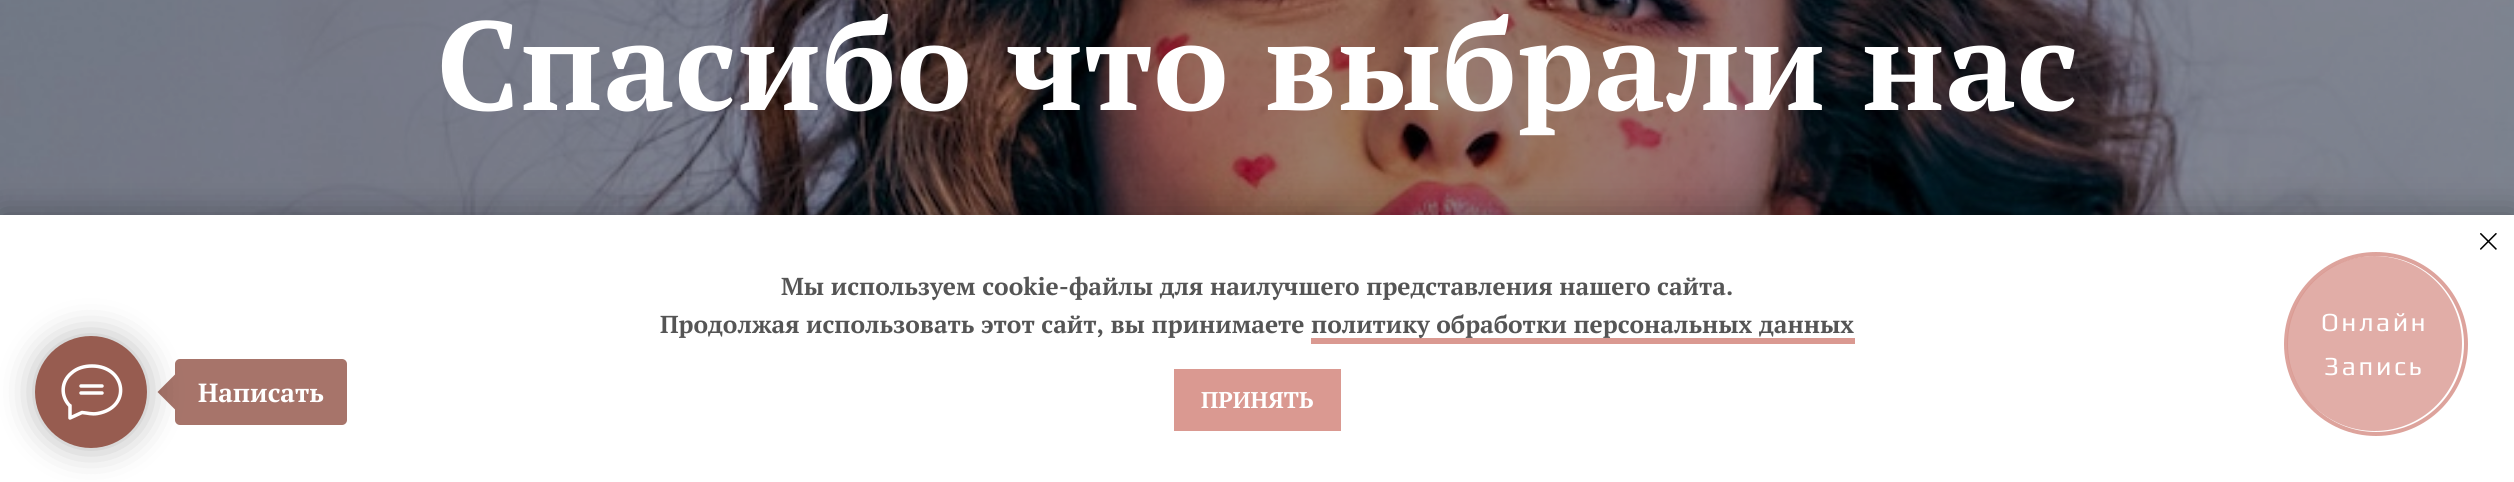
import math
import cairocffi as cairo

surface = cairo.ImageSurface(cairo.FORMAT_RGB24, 2514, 482)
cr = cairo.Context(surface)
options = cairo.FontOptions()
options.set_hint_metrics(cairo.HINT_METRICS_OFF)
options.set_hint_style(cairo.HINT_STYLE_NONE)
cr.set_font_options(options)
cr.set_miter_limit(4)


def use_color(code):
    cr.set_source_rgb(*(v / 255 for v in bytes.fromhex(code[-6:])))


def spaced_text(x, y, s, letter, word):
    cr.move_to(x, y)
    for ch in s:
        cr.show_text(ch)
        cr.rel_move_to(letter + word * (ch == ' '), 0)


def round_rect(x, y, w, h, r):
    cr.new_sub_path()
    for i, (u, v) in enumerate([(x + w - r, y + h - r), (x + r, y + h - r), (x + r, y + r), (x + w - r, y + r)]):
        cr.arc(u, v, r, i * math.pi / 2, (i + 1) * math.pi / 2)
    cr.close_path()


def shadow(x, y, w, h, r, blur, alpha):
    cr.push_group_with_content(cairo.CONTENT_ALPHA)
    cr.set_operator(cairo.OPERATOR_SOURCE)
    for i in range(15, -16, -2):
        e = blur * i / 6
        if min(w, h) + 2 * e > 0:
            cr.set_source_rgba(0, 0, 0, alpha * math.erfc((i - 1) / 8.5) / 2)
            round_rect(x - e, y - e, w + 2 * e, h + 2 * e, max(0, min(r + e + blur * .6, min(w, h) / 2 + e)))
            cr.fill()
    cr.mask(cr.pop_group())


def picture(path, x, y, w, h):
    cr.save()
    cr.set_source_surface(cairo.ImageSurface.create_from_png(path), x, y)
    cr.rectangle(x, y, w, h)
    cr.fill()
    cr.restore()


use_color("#ffffff")
cr.paint()
picture("img1.png", 0, 0, 2514, 215)
cr.select_font_face("PT Serif", cairo.FONT_SLANT_NORMAL, cairo.FONT_WEIGHT_BOLD)
cr.set_font_size(126)
use_color("#ffffff")
spaced_text(437, 110, "Спасибо что выбрали нас", 0.9, 0)
use_color("#000000")
shadow(0, 215, 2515, 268, 0, 17.5, 0.3)
use_color("#ffffff")
cr.rectangle(0, 215, 2514, 267)
cr.fill()
use_color("#a7746a")
round_rect(175, 359, 172, 66, 5)
cr.fill()
cr.new_path()
cr.move_to(175, 374.5)
cr.line_to(175, 409.5)
cr.line_to(157.5, 392)
cr.close_path()
cr.fill()
use_color("#000000")
shadow(35, 336, 112, 112, 56, 17.5, 0.3)
use_color("#975c50")
cr.arc(91, 392, 54, 0, 2 * math.pi)
cr.fill_preserve()
cr.set_line_width(4)
cr.stroke()
cr.new_path()
cr.move_to(81, 386)
cr.line_to(102, 386)
cr.move_to(81, 393)
cr.line_to(102, 393)
cr.move_to(69.5, 405.5)
cr.curve_to(60.5, 396, 61, 381.5, 71.5, 373)
cr.curve_to(77, 368, 84.5, 366, 92, 366)
cr.curve_to(126, 366, 132, 407.5, 97.5, 413.5)
cr.curve_to(91.5, 414.5, 88, 413, 82, 412.5)
cr.line_to(70, 418)
cr.line_to(70, 405.5)
cr.close_path()
use_color("#ffffff")
cr.set_line_width(3.5)
cr.set_line_cap(cairo.LINE_CAP_ROUND)
cr.set_line_join(cairo.LINE_JOIN_ROUND)
cr.stroke()
cr.set_font_size(26.25)
cr.move_to(198, 402)
cr.show_text("Написать")
picture("img2.png", 2480, 233, 17, 17)
cr.set_font_size(24.5)
use_color("#555555")
cr.move_to(781, 295)
cr.show_text("Мы используем cookie-файлы для наилучшего представления нашего сайта.")
cr.move_to(660, 333)
cr.show_text("Продолжая использовать этот сайт, вы принимаете")
use_color("#da9991")
cr.rectangle(1311, 338, 544, 6)
cr.fill()
use_color("#555555")
cr.move_to(1311, 333)
cr.show_text("политику обработки персональных данных")
use_color("#da9991")
cr.rectangle(1174, 369, 167, 62)
cr.fill()
cr.set_font_size(22.75)
use_color("#ffffff")
cr.move_to(1201, 408)
cr.show_text("ПРИНЯТЬ")
use_color("#e1ada7")
cr.new_path()
cr.arc(2374.5, 343.5, 87.5, 0, 2 * math.pi)
cr.fill()
cr.arc(2376, 344, 90, 0, 2 * math.pi)
cr.set_source_rgba(0.855, 0.6, 0.569, 0.9)
cr.set_line_width(4)
cr.set_line_cap(cairo.LINE_CAP_BUTT)
cr.set_line_join(cairo.LINE_JOIN_MITER)
cr.stroke()
cr.select_font_face("Play")
cr.set_font_size(26.25)
use_color("#ffffff")
spaced_text(2321, 331, "Онлайн", 2.5, 0)
spaced_text(2324, 375, "Запись", 2.5, 0)
surface.write_to_png("result.png")
